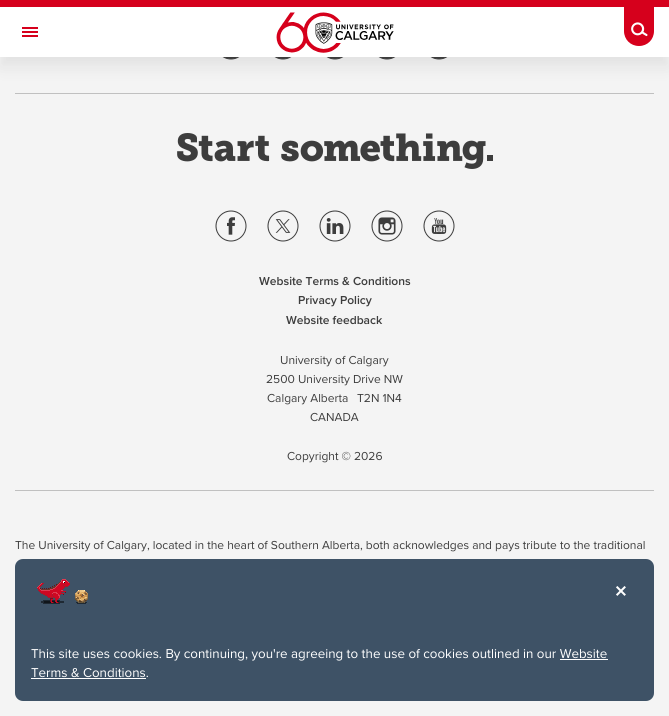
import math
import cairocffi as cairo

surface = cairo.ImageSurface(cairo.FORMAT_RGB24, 669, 716)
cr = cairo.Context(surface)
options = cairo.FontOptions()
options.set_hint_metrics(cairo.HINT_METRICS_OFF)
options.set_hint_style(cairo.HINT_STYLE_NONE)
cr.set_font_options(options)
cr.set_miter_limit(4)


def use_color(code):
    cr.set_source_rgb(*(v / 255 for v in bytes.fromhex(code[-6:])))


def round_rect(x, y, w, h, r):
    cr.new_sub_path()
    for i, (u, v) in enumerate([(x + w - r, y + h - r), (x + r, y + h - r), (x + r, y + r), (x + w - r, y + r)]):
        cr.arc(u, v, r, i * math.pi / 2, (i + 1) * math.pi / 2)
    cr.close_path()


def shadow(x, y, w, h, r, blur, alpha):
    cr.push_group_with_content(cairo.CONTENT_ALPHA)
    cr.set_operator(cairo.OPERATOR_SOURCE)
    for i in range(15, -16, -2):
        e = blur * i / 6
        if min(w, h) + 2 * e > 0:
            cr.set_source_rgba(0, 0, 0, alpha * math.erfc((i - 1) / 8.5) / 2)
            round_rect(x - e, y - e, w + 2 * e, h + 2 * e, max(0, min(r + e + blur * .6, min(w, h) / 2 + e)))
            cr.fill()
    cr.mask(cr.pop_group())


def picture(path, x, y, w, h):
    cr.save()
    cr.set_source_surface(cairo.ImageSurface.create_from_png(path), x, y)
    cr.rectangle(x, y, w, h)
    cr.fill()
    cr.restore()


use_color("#f4f4f4")
cr.paint()
use_color("#d6001c")
cr.rectangle(0, 0, 669, 7)
cr.fill()
picture("img3.png", 222, 57, 18, 3)
picture("img3.png", 274, 57, 18, 3)
picture("img3.png", 326, 57, 18, 3)
picture("img3.png", 378, 57, 18, 3)
picture("img3.png", 430, 57, 18, 3)
use_color("#3d3d3d")
shadow(0, 17, 669, 50, 0, 7.5, 0.1)
use_color("#ffffff")
cr.rectangle(0, 7, 669, 50)
cr.fill()
use_color("#d6001c")
cr.new_path()
cr.move_to(624, 0)
cr.line_to(654, 0)
cr.line_to(654, 31)
cr.curve_to(654, 39.5, 647.5, 46, 639, 46)
cr.curve_to(630.5, 46, 624, 39.5, 624, 31)
cr.close_path()
cr.fill()
picture("img1.png", 631, 22, 17, 15)
cr.rectangle(22, 31, 16, 2)
cr.fill()
cr.rectangle(22, 27, 16, 2)
cr.fill()
cr.rectangle(22, 35, 16, 2)
cr.fill()
picture("img2.png", 276, 12, 118, 41)
use_color("#c0c0c0")
cr.rectangle(15, 93, 639, 1)
cr.fill()
picture("img4.png", 177, 133, 316, 36)
picture("img5.png", 215, 210, 32, 32)
picture("img6.png", 267, 210, 32, 32)
picture("img7.png", 319, 210, 32, 32)
picture("img8.png", 371, 210, 32, 32)
picture("img9.png", 423, 210, 32, 32)
cr.select_font_face("Proxima Nova SemiBold")
cr.set_font_size(12)
use_color("#3d3d3d")
cr.move_to(259, 285)
cr.show_text("Website Terms & Conditions")
cr.move_to(298, 304)
cr.show_text("Privacy Policy")
cr.move_to(286, 324)
cr.show_text("Website feedback")
cr.select_font_face("Proxima Nova")
cr.move_to(280, 364)
cr.show_text("University of Calgary")
cr.move_to(266, 383)
cr.show_text("2500 University Drive NW")
cr.move_to(267, 402)
cr.show_text("Calgary Alberta")
cr.move_to(357, 402)
cr.show_text("T2N 1N4")
cr.move_to(310, 421)
cr.show_text("CANADA")
cr.move_to(287, 460)
cr.show_text("Copyright © 2026")
use_color("#c0c0c0")
cr.rectangle(15, 490, 639, 1)
cr.fill()
use_color("#3d3d3d")
cr.move_to(15, 549)
cr.show_text("The University of Calgary, located in the heart of Southern Alberta, both acknowledges and pays tribute to the traditional")
use_color("#3e5266")
round_rect(15, 559, 639, 142, 8)
cr.fill()
picture("img10.png", 37, 579, 51, 25)
cr.select_font_face("DejaVu Sans", cairo.FONT_SLANT_NORMAL, cairo.FONT_WEIGHT_BOLD)
cr.set_font_size(16)
use_color("#ffffff")
cr.move_to(614, 597)
cr.show_text("✕")
cr.select_font_face("Proxima Nova")
cr.set_font_size(13.35)
cr.move_to(31, 658)
cr.show_text("This site uses cookies. By continuing, you're agreeing to the use of cookies outlined in our Website")
cr.move_to(31, 677)
cr.show_text("Terms & Conditions.")
cr.rectangle(560, 659, 48, 1)
cr.fill()
cr.rectangle(31, 678, 115, 1)
cr.fill()
surface.write_to_png("result.png")
